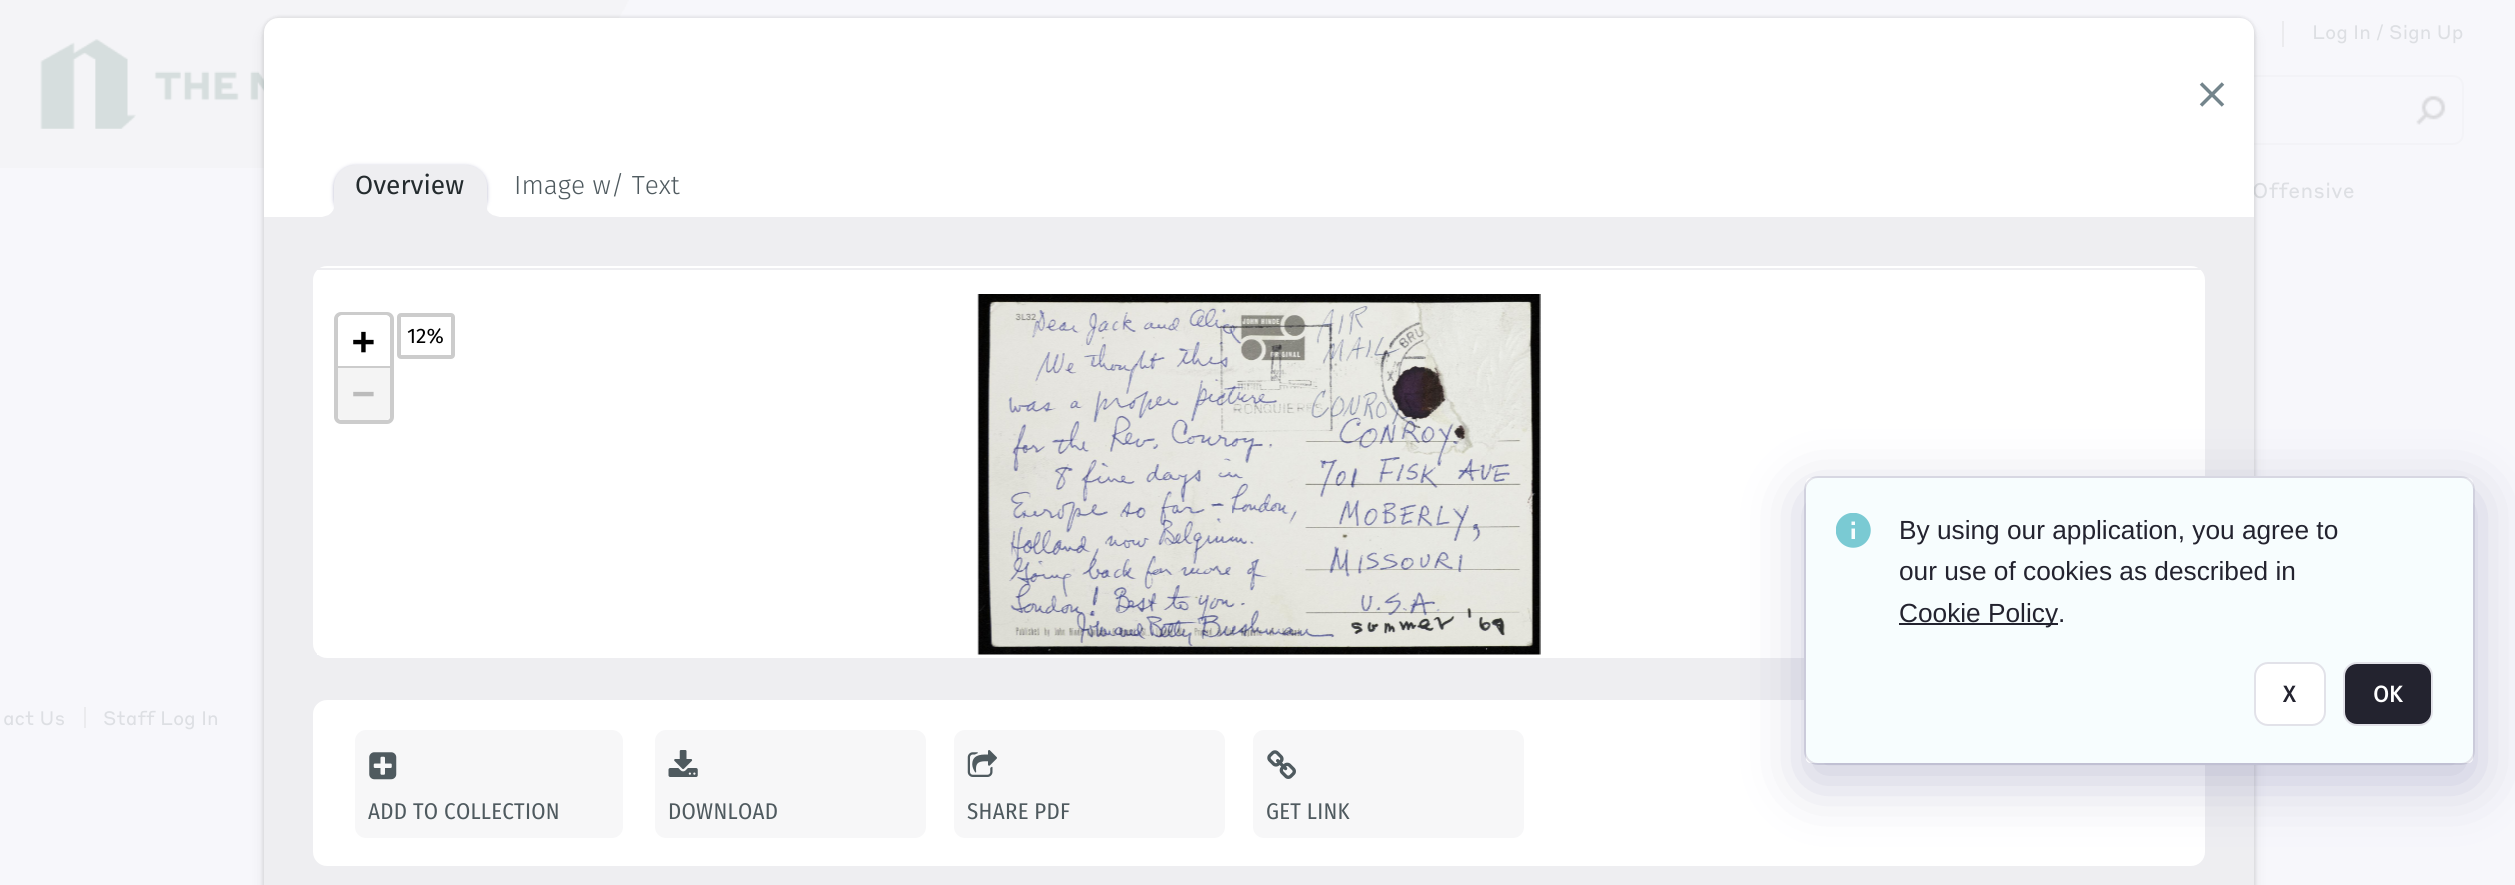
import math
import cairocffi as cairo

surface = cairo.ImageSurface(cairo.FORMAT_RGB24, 2515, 885)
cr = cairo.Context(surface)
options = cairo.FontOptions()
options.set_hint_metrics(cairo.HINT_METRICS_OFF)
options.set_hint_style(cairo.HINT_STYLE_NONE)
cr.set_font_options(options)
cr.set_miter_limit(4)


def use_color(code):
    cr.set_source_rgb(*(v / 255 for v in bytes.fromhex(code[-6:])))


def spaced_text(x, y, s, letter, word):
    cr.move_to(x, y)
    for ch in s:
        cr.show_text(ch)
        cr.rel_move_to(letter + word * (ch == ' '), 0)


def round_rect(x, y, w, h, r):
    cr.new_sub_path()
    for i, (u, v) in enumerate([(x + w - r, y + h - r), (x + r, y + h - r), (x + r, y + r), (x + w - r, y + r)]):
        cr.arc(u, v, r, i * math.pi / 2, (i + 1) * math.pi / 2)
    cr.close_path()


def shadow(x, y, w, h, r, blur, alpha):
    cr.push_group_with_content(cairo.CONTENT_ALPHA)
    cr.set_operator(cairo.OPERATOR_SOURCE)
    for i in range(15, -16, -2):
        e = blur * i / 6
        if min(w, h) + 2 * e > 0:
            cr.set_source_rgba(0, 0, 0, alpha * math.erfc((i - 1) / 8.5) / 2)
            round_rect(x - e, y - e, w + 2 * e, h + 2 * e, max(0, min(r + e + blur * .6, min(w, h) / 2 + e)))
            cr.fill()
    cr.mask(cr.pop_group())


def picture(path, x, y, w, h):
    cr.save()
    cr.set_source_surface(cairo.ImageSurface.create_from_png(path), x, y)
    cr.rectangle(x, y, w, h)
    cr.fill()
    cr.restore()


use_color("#f7f7fb")
cr.paint()
picture("img1.png", 0, 0, 629, 168)
use_color("#ebebee")
cr.rectangle(2282, 21, 2, 26)
cr.fill()
cr.select_font_face("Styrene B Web")
cr.set_font_size(19.25)
use_color("#dddfe3")
cr.move_to(2312, 39)
cr.show_text("Log In / Sign Up")
round_rect(1765, 76, 698, 68, 10)
use_color("#f3f3f7")
cr.stroke()
picture("img2.png", 2416, 95, 30, 30)
cr.set_font_size(21)
use_color("#dddfe3")
spaced_text(2252, 198, "Offensive", 0.3, 0)
cr.set_font_size(19.25)
cr.move_to(3, 725)
cr.show_text("act Us")
use_color("#ebebee")
cr.rectangle(84, 707, 2, 21)
cr.fill()
use_color("#dddfe3")
cr.move_to(103, 725)
cr.show_text("Staff Log In")
use_color("#000000")
shadow(264, 18, 1990, 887, 14, 2, 0.06)
shadow(264, 18, 1990, 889, 14, 2.5, 0.08)
shadow(264, 26, 1990, 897, 14, 8, 0.06)
shadow(264, 23, 1990, 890, 14, 4.5, 0.06)
use_color("#ffffff")
cr.new_path()
cr.move_to(278, 18)
cr.line_to(2240, 18)
cr.curve_to(2247.5, 18, 2254, 24.5, 2254, 32)
cr.line_to(2254, 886)
cr.line_to(264, 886)
cr.line_to(264, 32)
cr.curve_to(264, 24.5, 270.5, 18, 278, 18)
cr.close_path()
cr.fill()
picture("img3.png", 2199, 82, 26, 25)
use_color("#6f6f9d")
shadow(334, 166, 153, 53, 21, 2, 0.5)
use_color("#eeeef1")
cr.new_path()
cr.move_to(355, 165)
cr.line_to(466, 165)
cr.curve_to(477.5, 165, 487, 174.5, 487, 186)
cr.line_to(487, 217)
cr.line_to(334, 217)
cr.line_to(334, 186)
cr.curve_to(334, 174.5, 343.5, 165, 355, 165)
cr.close_path()
cr.fill()
cr.new_path()
cr.move_to(334.5, 207)
cr.line_to(333, 210.5)
cr.line_to(331, 213)
cr.line_to(328.5, 215)
cr.line_to(322, 217)
cr.line_to(335, 217)
cr.line_to(335, 203)
cr.close_path()
cr.fill()
cr.new_path()
cr.move_to(487, 209)
cr.line_to(487, 217)
cr.line_to(499.5, 217)
cr.line_to(492.5, 215)
cr.line_to(489.5, 213)
cr.line_to(487.5, 210.5)
cr.close_path()
cr.fill()
cr.select_font_face("Fira Sans")
cr.set_font_size(26.25)
use_color("#242b2e")
cr.move_to(355, 194)
cr.show_text("Overview")
cr.select_font_face("Fira Sans Light")
use_color("#4f5a5f")
cr.move_to(514, 194)
cr.show_text("Image w/ Text")
use_color("#eeeef1")
cr.rectangle(264, 217, 1990, 668)
cr.fill()
use_color("#ffffff")
round_rect(313, 266, 1892, 392, 14)
cr.fill()
use_color("#eeeef1")
cr.rectangle(313, 268, 1892, 2)
cr.fill()
use_color("#ffffff")
cr.rectangle(317, 653, 1885, 2)
cr.fill()
round_rect(336, 314, 56, 108, 5)
use_color("#cccccc")
cr.set_line_width(4)
cr.stroke()
use_color("#ffffff")
cr.new_path()
cr.move_to(342, 315)
cr.line_to(386, 315)
cr.curve_to(388, 315, 390, 317, 390, 319)
cr.line_to(390, 368)
cr.line_to(338, 368)
cr.line_to(338, 319)
cr.curve_to(338, 317, 340, 315, 342, 315)
cr.close_path()
cr.fill()
use_color("#cccccc")
cr.rectangle(338, 366, 52, 2)
cr.fill()
cr.select_font_face("DejaVu Sans Mono", cairo.FONT_SLANT_NORMAL, cairo.FONT_WEIGHT_BOLD)
cr.set_font_size(38)
use_color("#000000")
cr.move_to(352, 354)
cr.show_text("+")
use_color("#f4f4f4")
cr.new_path()
cr.move_to(338, 368)
cr.line_to(390, 368)
cr.line_to(390, 416)
cr.curve_to(390, 418, 388, 420, 386, 420)
cr.line_to(342, 420)
cr.curve_to(340, 420, 338, 418, 338, 416)
cr.close_path()
cr.fill()
use_color("#bbbbbb")
cr.move_to(352, 406)
cr.show_text("−")
picture("img4.png", 977, 294, 564, 361)
round_rect(399, 315, 54, 42, 2)
use_color("#cccccc")
cr.stroke()
cr.select_font_face("Fira Sans")
cr.set_font_size(21)
use_color("#000000")
cr.move_to(407, 343)
cr.show_text("12%")
use_color("#ffffff")
round_rect(313, 700, 1892, 166, 14)
cr.fill()
use_color("#f7f7f8")
round_rect(355, 730, 268, 108, 11)
cr.fill()
picture("img5.png", 369, 752, 28, 28)
cr.select_font_face("Fira Sans Condensed")
cr.set_font_size(22.75)
use_color("#4f5a5f")
spaced_text(368, 819, "ADD TO COLLECTION", 0.3, 0)
use_color("#f7f7f8")
round_rect(655, 730, 271, 108, 11)
cr.fill()
picture("img6.png", 668, 750, 30, 27)
use_color("#4f5a5f")
spaced_text(668, 819, "DOWNLOAD", 0.3, 0)
use_color("#f7f7f8")
round_rect(954, 730, 271, 108, 11)
cr.fill()
picture("img7.png", 967, 750, 30, 27)
use_color("#4f5a5f")
spaced_text(967, 819, "SHARE PDF", 0.3, 0)
use_color("#f7f7f8")
round_rect(1253, 730, 271, 108, 11)
cr.fill()
picture("img8.png", 1267, 750, 29, 29)
use_color("#4f5a5f")
spaced_text(1266, 819, "GET LINK", 0.3, 0)
use_color("#f7fdfe")
round_rect(1805, 477, 669, 287, 13)
cr.fill_preserve()
use_color("#e2e2e9")
cr.set_line_width(2)
cr.stroke()
cr.save()
cr.set_fill_rule(cairo.FILL_RULE_EVEN_ODD)
cr.new_path()
cr.move_to(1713, 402)
cr.line_to(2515, 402)
cr.line_to(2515, 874)
cr.line_to(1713, 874)
cr.close_path()
cr.move_to(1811, 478)
cr.line_to(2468, 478)
cr.curve_to(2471, 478, 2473, 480, 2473, 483)
cr.line_to(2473, 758)
cr.curve_to(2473, 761, 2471, 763, 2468, 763)
cr.line_to(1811, 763)
cr.curve_to(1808, 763, 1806, 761, 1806, 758)
cr.line_to(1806, 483)
cr.curve_to(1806, 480, 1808, 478, 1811, 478)
cr.close_path()
cr.clip()
use_color("#4d4d87")
shadow(1806, 495, 667, 286, 5, 30.5, 0.3)
cr.restore()
picture("img9.png", 1836, 513, 35, 35)
cr.select_font_face("Liberation Sans")
cr.set_font_size(26.25)
use_color("#23232f")
cr.move_to(1899, 539)
cr.show_text("By using our application, you agree to")
cr.move_to(1899, 580)
cr.show_text("our use of cookies as described in")
cr.rectangle(1899, 623, 159, 2)
cr.fill()
cr.move_to(1899, 622)
cr.show_text("Cookie Policy")
cr.move_to(2058, 622)
cr.show_text(".")
use_color("#ffffff")
round_rect(2255, 663, 70, 62, 13)
cr.fill_preserve()
use_color("#e2e2e9")
cr.stroke()
cr.select_font_face("Fira Sans", cairo.FONT_SLANT_NORMAL, cairo.FONT_WEIGHT_BOLD)
cr.set_font_size(22.75)
use_color("#23232f")
cr.move_to(2283, 702)
cr.show_text("X")
round_rect(2344, 663, 88, 62, 13)
cr.fill_preserve()
use_color("#e2e2e9")
cr.stroke()
use_color("#ffffff")
cr.move_to(2373, 702)
cr.show_text("OK")
surface.write_to_png("result.png")
